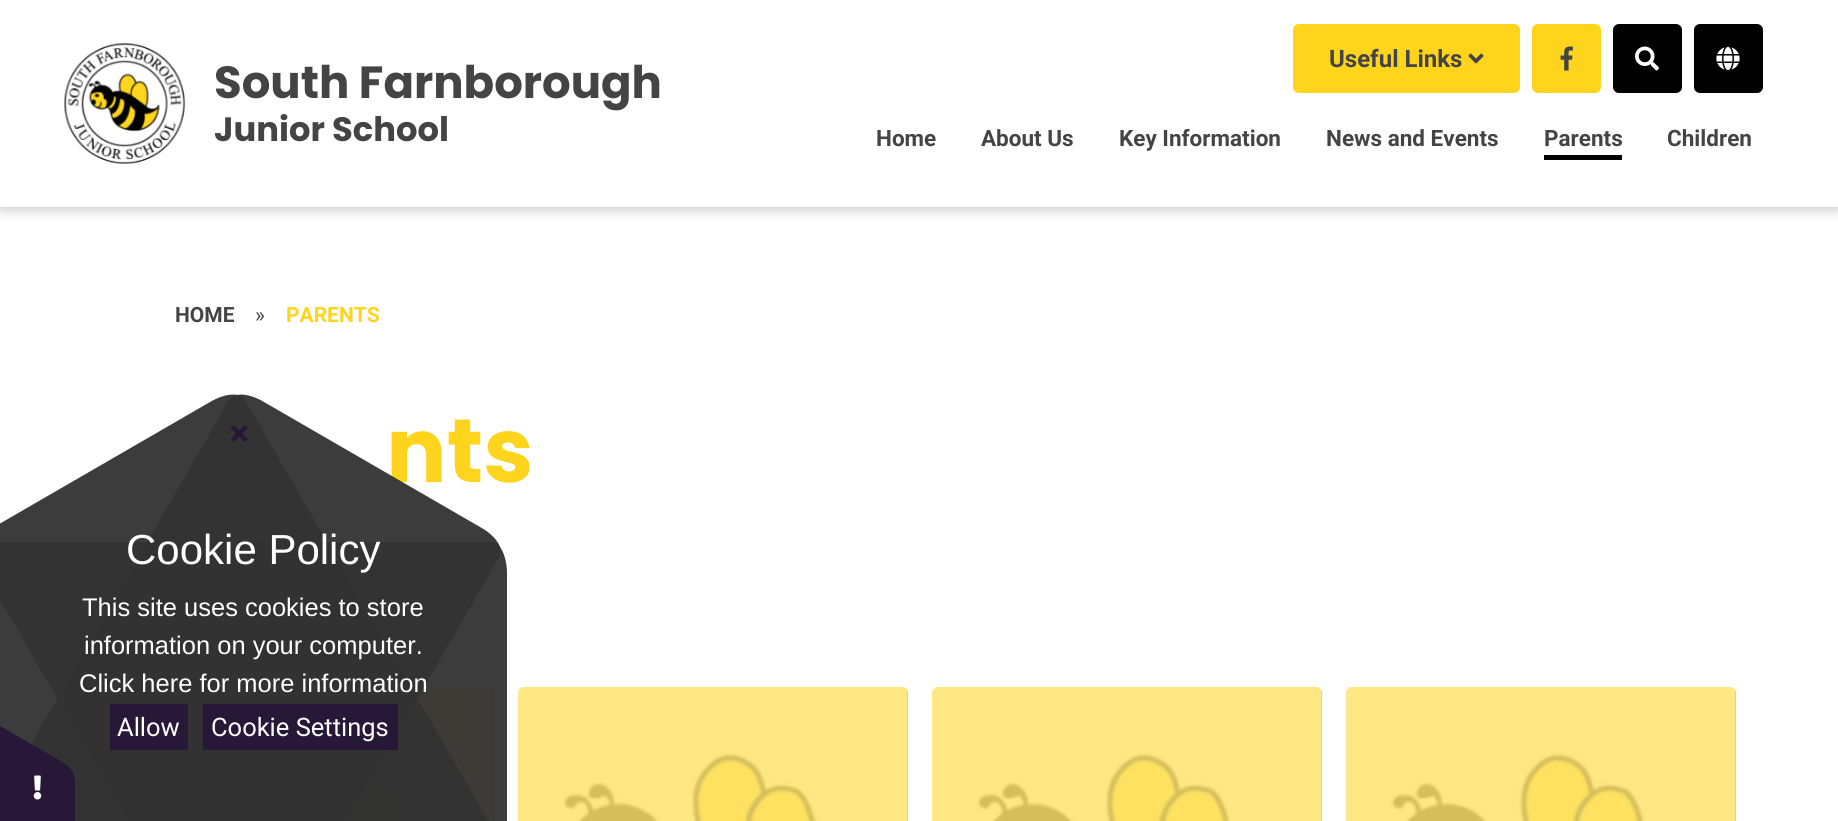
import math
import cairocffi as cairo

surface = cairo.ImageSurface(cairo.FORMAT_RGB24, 1838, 821)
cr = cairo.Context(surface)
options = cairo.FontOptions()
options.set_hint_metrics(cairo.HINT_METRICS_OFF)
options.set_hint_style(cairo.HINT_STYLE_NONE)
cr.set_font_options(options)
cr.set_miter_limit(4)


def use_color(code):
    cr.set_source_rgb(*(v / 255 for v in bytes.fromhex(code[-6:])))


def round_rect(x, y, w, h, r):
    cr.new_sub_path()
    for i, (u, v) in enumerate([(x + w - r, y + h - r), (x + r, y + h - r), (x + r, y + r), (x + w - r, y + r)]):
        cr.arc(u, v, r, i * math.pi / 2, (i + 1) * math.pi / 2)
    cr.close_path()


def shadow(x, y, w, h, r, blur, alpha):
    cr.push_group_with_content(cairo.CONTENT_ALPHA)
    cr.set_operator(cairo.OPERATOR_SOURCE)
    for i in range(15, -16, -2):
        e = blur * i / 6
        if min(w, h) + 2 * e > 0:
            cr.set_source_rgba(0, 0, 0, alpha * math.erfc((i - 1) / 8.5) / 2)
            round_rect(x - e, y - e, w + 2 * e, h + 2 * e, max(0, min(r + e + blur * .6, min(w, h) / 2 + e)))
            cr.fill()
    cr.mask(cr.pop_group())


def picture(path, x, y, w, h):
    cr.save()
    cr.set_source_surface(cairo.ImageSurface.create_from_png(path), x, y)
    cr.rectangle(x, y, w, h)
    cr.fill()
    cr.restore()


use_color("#ffffff")
cr.paint()
use_color("#000000")
shadow(0, -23, 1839, 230, 0, 7.5, 0.3)
use_color("#ffffff")
cr.rectangle(0, 0, 1838, 207)
cr.fill()
picture("img1.png", 64, 43, 121, 121)
cr.select_font_face("Poppins", cairo.FONT_SLANT_NORMAL, cairo.FONT_WEIGHT_BOLD)
cr.set_font_size(45)
use_color("#444444")
cr.move_to(214, 98)
cr.show_text("South Farnborough")
cr.set_font_size(33.75)
cr.move_to(214, 141)
cr.show_text("Junior School")
use_color("#fed41d")
round_rect(1293, 24, 227, 69, 6)
cr.fill()
cr.select_font_face("Roboto", cairo.FONT_SLANT_NORMAL, cairo.FONT_WEIGHT_BOLD)
cr.set_font_size(24)
use_color("#444444")
cr.move_to(1329, 67)
cr.show_text("Useful Links")
picture("img2.png", 1468, 53, 16, 11)
use_color("#fed41d")
round_rect(1532, 24, 69, 69, 6)
cr.fill()
picture("img3.png", 1560, 46, 13, 25)
use_color("#000000")
round_rect(1613, 24, 69, 69, 6)
cr.fill()
picture("img4.png", 1635, 46, 24, 25)
round_rect(1694, 24, 69, 69, 6)
cr.fill()
picture("img5.png", 1716, 46, 24, 25)
cr.set_font_size(22.5)
use_color("#444444")
cr.move_to(876, 146)
cr.show_text("Home")
cr.move_to(981, 146)
cr.show_text("About Us")
cr.move_to(1119, 146)
cr.show_text("Key Information")
cr.move_to(1326, 146)
cr.show_text("News and Events")
cr.move_to(1544, 146)
cr.show_text("Parents")
use_color("#000000")
cr.rectangle(1544, 155, 78, 5)
cr.fill()
use_color("#444444")
cr.move_to(1667, 146)
cr.show_text("Children")
cr.set_font_size(21)
cr.move_to(175, 322)
cr.show_text("HOME")
cr.select_font_face("Roboto")
cr.move_to(255, 322)
cr.show_text("»")
cr.select_font_face("Roboto", cairo.FONT_SLANT_NORMAL, cairo.FONT_WEIGHT_BOLD)
use_color("#fed41d")
cr.move_to(286, 322)
cr.show_text("PARENTS")
cr.select_font_face("Poppins", cairo.FONT_SLANT_NORMAL, cairo.FONT_WEIGHT_BOLD)
cr.set_font_size(90)
cr.move_to(386, 482)
cr.show_text("nts")
use_color("#fed009")
round_rect(104, 687, 390, 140, 6)
cr.fill()
picture("img6.png", 104, 687, 390, 134)
round_rect(518, 687, 390, 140, 6)
cr.fill()
picture("img6.png", 518, 687, 390, 134)
round_rect(932, 687, 390, 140, 6)
cr.fill()
picture("img6.png", 932, 687, 390, 134)
round_rect(1346, 687, 390, 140, 6)
cr.fill()
picture("img7.png", 1346, 687, 390, 134)
cr.set_source_rgba(0.2, 0.2, 0.2, 0.95)
cr.new_path()
cr.move_to(507, 574)
cr.line_to(507, 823)
cr.curve_to(507, 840, 500, 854, 492, 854)
cr.line_to(-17, 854)
cr.curve_to(-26, 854, -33, 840, -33, 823)
cr.line_to(-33, 574)
cr.curve_to(-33, 556, -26, 542, -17, 542)
cr.line_to(492, 542)
cr.curve_to(500, 542, 507, 556, 507, 574)
cr.close_path()
cr.fill()
cr.new_path()
cr.move_to(480, 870)
cr.line_to(264, 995)
cr.curve_to(249, 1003, 234, 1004, 229, 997)
cr.line_to(-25, 556)
cr.curve_to(-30, 548, -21, 535, -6, 527)
cr.line_to(210, 402)
cr.curve_to(225, 393, 241, 392, 245, 400)
cr.line_to(500, 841)
cr.curve_to(504, 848, 495, 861, 480, 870)
cr.close_path()
cr.fill()
cr.new_path()
cr.move_to(264, 402)
cr.line_to(480, 527)
cr.curve_to(495, 535, 504, 548, 500, 556)
cr.line_to(245, 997)
cr.curve_to(241, 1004, 225, 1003, 210, 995)
cr.line_to(-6, 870)
cr.curve_to(-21, 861, -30, 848, -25, 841)
cr.line_to(229, 400)
cr.curve_to(234, 392, 249, 393, 264, 402)
cr.close_path()
cr.fill()
picture("img8.png", 231, 425, 17, 17)
cr.select_font_face("Liberation Sans")
cr.set_font_size(42)
use_color("#ffffff")
cr.move_to(126, 564)
cr.show_text("Cookie Policy")
cr.set_font_size(25.5)
cr.move_to(82, 616)
cr.show_text("This site uses cookies to store")
cr.move_to(84, 654)
cr.show_text("information on your computer.")
cr.move_to(79, 692)
cr.show_text("Click here for more information")
use_color("#281838")
cr.rectangle(110, 704, 78, 46)
cr.fill()
cr.select_font_face("Roboto")
use_color("#ffffff")
cr.move_to(117, 736)
cr.show_text("Allow")
use_color("#281838")
cr.rectangle(203, 704, 195, 46)
cr.fill()
use_color("#ffffff")
cr.move_to(211, 736)
cr.show_text("Cookie Settings")
use_color("#281838")
cr.new_path()
cr.move_to(75, 781)
cr.line_to(75, 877)
cr.curve_to(75, 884, 72, 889, 69, 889)
cr.line_to(-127, 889)
cr.curve_to(-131, 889, -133, 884, -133, 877)
cr.line_to(-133, 781)
cr.curve_to(-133, 775, -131, 769, -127, 769)
cr.line_to(69, 769)
cr.curve_to(72, 769, 75, 775, 75, 781)
cr.close_path()
cr.fill()
cr.new_path()
cr.move_to(-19, 715)
cr.line_to(64, 763)
cr.curve_to(70, 767, 73, 772, 72, 775)
cr.line_to(-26, 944)
cr.curve_to(-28, 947, -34, 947, -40, 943)
cr.line_to(-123, 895)
cr.curve_to(-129, 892, -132, 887, -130, 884)
cr.line_to(-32, 715)
cr.curve_to(-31, 712, -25, 712, -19, 715)
cr.close_path()
cr.fill()
picture("img9.png", 33, 775, 9, 25)
surface.write_to_png("result.png")
